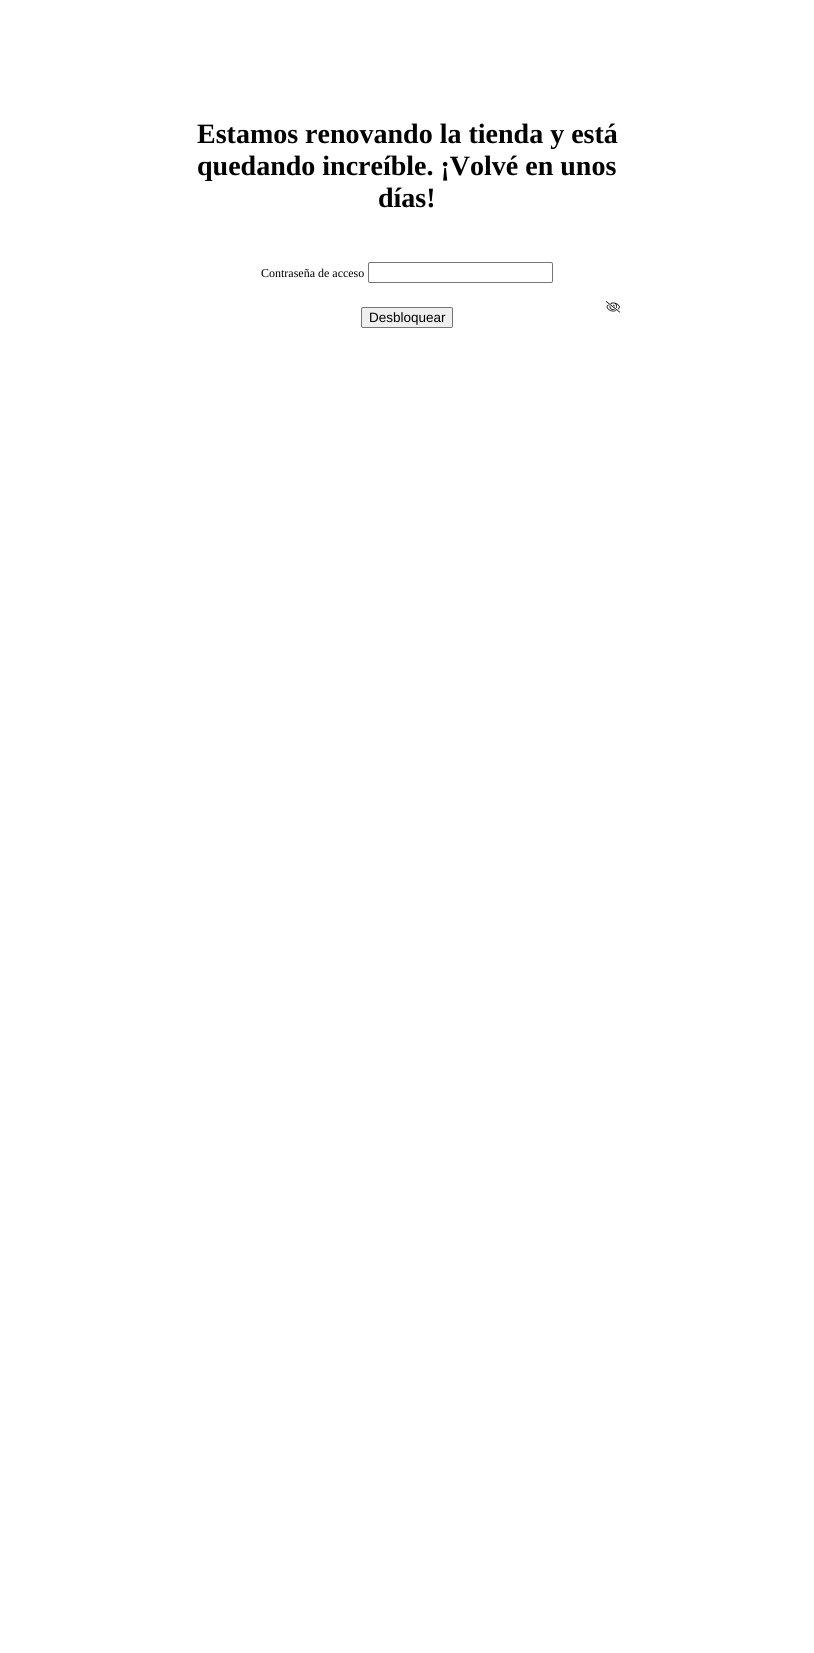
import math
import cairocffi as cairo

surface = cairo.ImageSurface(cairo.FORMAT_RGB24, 814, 1653)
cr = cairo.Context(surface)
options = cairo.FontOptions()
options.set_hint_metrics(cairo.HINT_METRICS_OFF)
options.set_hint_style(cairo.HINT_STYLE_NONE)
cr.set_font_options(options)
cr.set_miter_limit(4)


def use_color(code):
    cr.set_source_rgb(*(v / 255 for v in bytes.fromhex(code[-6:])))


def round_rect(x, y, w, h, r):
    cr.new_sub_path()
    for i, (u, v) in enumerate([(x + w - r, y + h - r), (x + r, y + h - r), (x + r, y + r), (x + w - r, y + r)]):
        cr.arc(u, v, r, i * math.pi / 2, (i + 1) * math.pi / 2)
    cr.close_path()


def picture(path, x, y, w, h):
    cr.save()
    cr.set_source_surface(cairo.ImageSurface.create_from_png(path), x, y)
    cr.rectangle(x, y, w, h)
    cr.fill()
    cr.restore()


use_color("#ffffff")
cr.paint()
cr.select_font_face("Liberation Serif", cairo.FONT_SLANT_NORMAL, cairo.FONT_WEIGHT_BOLD)
cr.set_font_size(28)
use_color("#000000")
cr.move_to(197, 143)
cr.show_text("Estamos renovando la tienda y está")
cr.move_to(197, 175)
cr.show_text("quedando increíble. ¡Volvé en unos")
cr.move_to(378, 207)
cr.show_text("días!")
cr.select_font_face("Liberation Serif")
cr.set_font_size(12)
cr.move_to(261, 277)
cr.show_text("Contraseña de acceso")
round_rect(368.5, 262.5, 184, 20, 1.5)
use_color("#767676")
cr.set_line_width(1)
cr.stroke()
picture("img1.png", 605, 301, 15, 12)
use_color("#efefef")
round_rect(361.5, 307.5, 91, 20, 1.5)
cr.fill_preserve()
use_color("#767676")
cr.stroke()
cr.select_font_face("Liberation Sans")
cr.set_font_size(13.5)
use_color("#000000")
cr.move_to(369, 322)
cr.show_text("Desbloquear")
surface.write_to_png("result.png")
